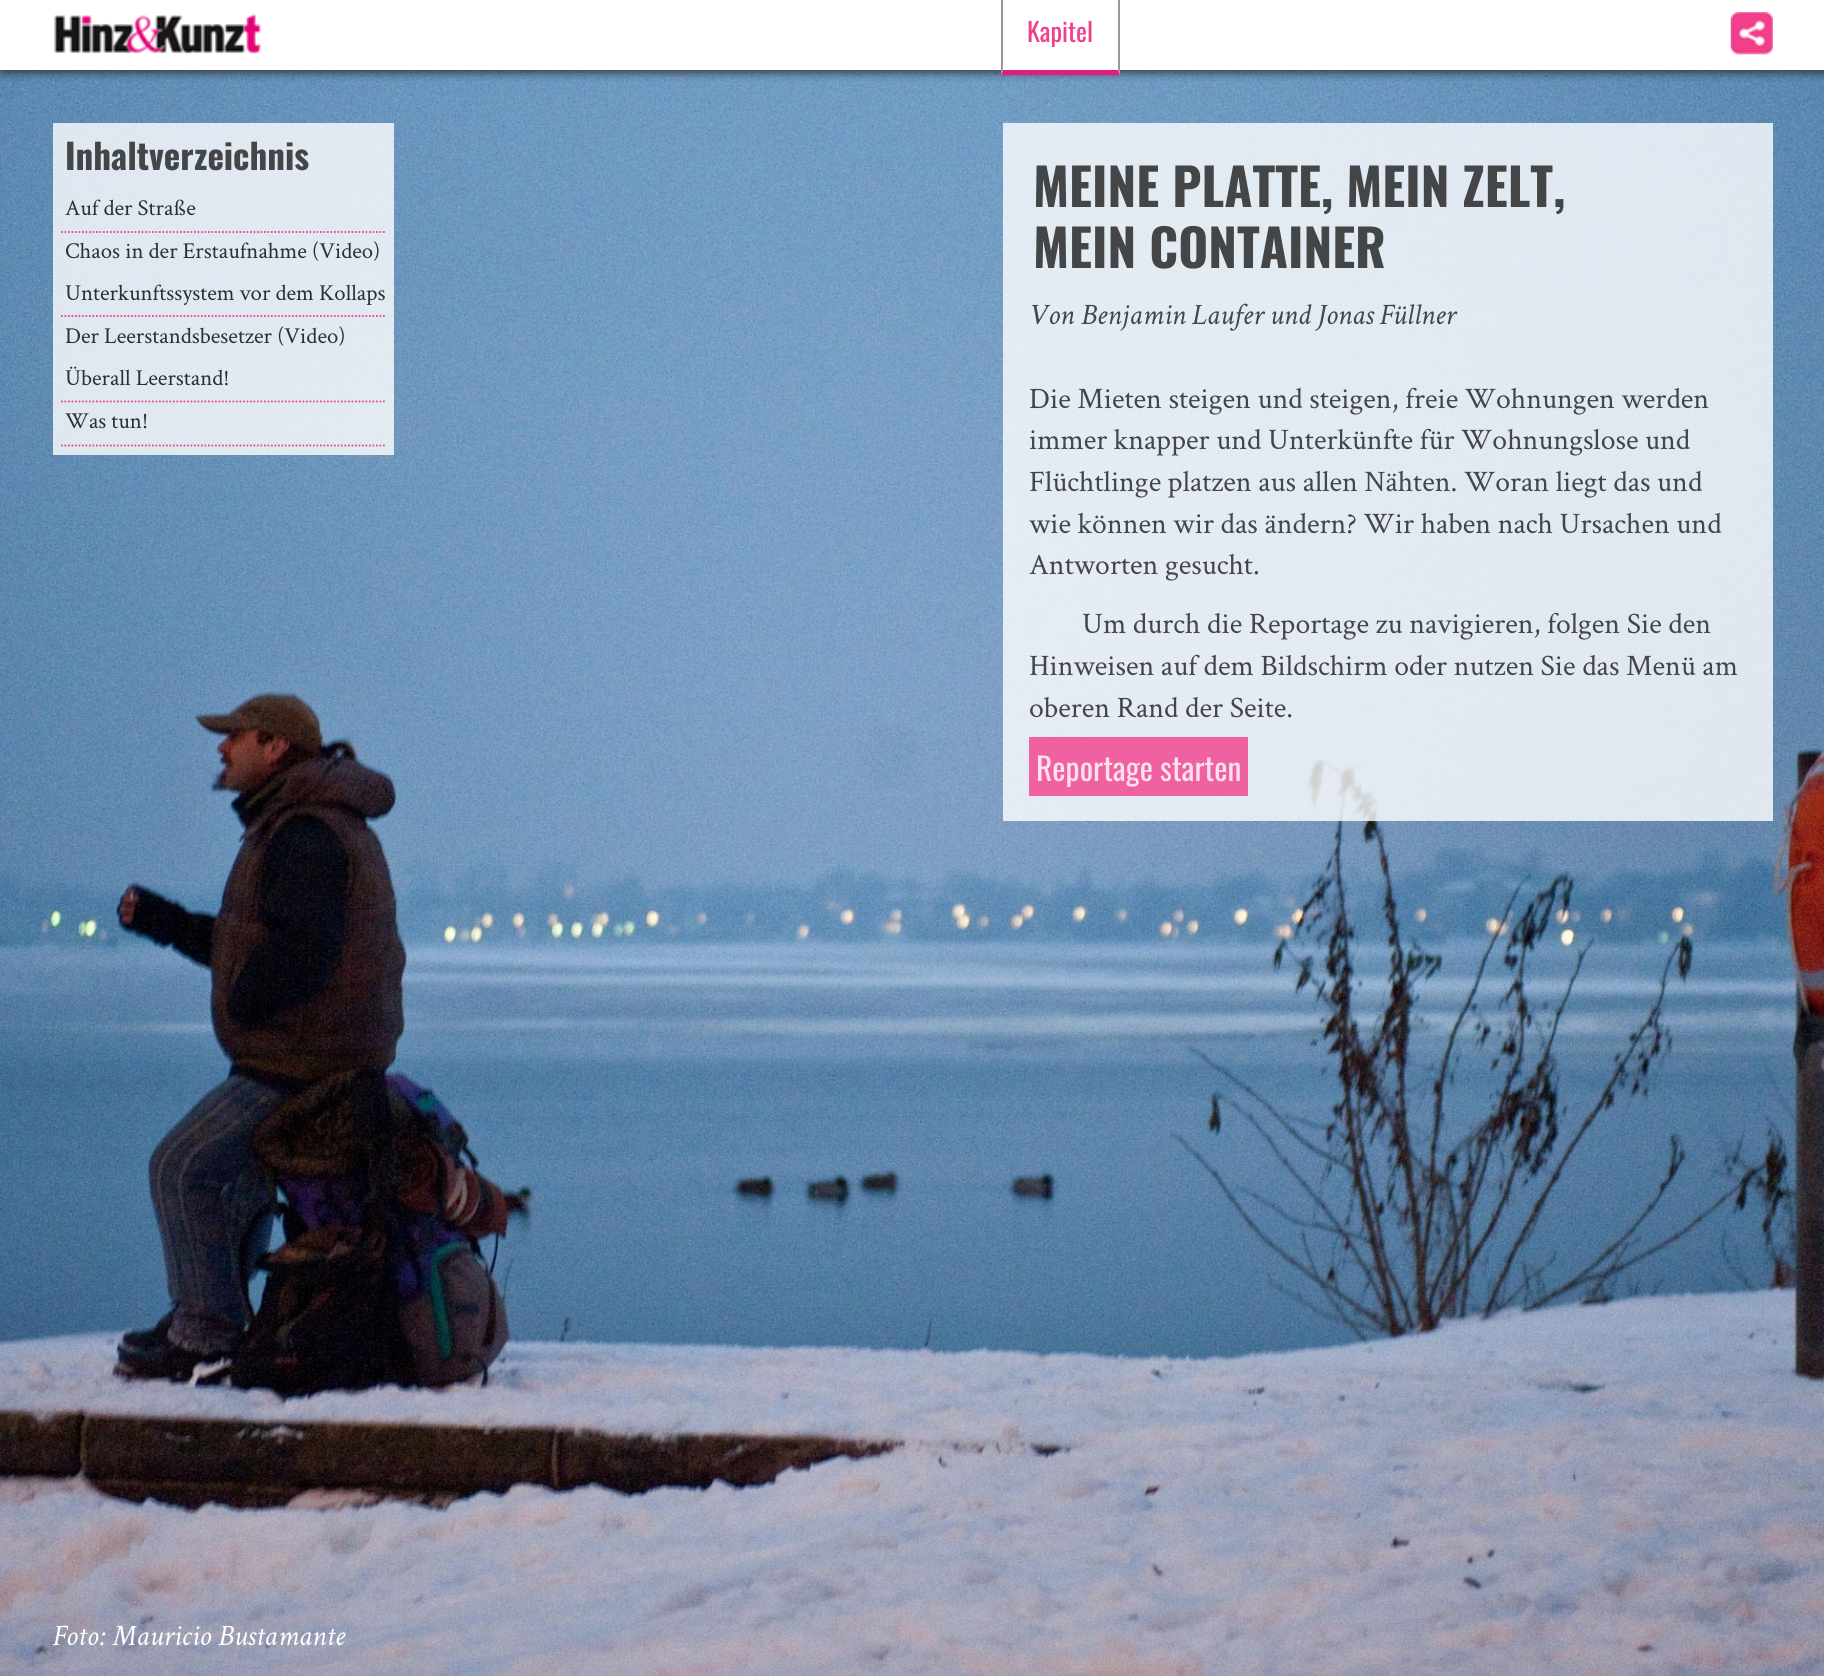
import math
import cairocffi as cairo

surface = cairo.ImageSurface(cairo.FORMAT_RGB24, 1824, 1676)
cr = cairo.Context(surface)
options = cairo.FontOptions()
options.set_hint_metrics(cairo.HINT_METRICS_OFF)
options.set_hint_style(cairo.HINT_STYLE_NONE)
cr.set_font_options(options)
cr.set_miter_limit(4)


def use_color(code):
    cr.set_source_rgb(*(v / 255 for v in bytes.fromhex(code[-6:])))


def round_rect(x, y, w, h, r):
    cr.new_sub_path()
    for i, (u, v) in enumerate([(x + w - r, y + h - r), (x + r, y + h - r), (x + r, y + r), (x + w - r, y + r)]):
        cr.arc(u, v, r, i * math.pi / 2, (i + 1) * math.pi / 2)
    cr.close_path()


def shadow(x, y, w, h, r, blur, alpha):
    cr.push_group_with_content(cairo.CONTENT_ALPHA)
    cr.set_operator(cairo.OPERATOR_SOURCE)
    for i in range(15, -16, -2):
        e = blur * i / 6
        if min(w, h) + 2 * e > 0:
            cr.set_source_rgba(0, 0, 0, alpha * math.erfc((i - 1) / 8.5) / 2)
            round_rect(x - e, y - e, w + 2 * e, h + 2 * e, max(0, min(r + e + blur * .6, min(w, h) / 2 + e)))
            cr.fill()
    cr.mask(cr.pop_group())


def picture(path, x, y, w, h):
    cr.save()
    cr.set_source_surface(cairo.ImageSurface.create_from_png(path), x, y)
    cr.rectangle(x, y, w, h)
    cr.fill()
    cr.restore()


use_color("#ffffff")
cr.paint()
picture("img3.png", 0, 70, 1824, 1606)
cr.save()
cr.rectangle(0, 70, 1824, 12)
cr.clip()
use_color("#292929")
shadow(2, 2, 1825, 70, 0, 5, 1)
cr.restore()
picture("img1.png", 53, 13, 209, 42)
use_color("#ffffff")
cr.rectangle(1001, 70, 119, 5)
cr.fill()
use_color("#999999")
cr.new_path()
cr.move_to(1120, 0)
cr.line_to(1120, 75)
cr.line_to(1118, 70)
cr.line_to(1118, 0)
cr.close_path()
cr.fill()
use_color("#e61c7a")
cr.new_path()
cr.move_to(1120, 75)
cr.line_to(1001, 75)
cr.line_to(1003, 70)
cr.line_to(1118, 70)
cr.close_path()
cr.fill()
use_color("#999999")
cr.new_path()
cr.move_to(1001, 75)
cr.line_to(1001, 0)
cr.line_to(1003, 0)
cr.line_to(1003, 70)
cr.close_path()
cr.fill()
cr.select_font_face("Oswald")
cr.set_font_size(26)
use_color("#f13f8b")
cr.move_to(1027, 42)
cr.show_text("Kapitel")
picture("img2.png", 1730, 12, 43, 43)
cr.set_source_rgba(1, 1, 1, 0.8)
cr.rectangle(53, 123, 341, 332)
cr.fill()
cr.select_font_face("Oswald", cairo.FONT_SLANT_NORMAL, cairo.FONT_WEIGHT_BOLD)
cr.set_font_size(35)
use_color("#434547")
cr.move_to(65, 170)
cr.show_text("Inhaltverzeichnis")
cr.new_path()
cr.move_to(61, 232)
cr.line_to(385, 232)
cr.set_source_rgba(0.902, 0.11, 0.478, 0.8)
cr.set_line_width(1.8)
cr.set_dash([1.75, 1.75])
cr.stroke()
cr.select_font_face("Crimson Text")
cr.set_font_size(22.75)
use_color("#2d2e30")
cr.move_to(65, 215)
cr.show_text("Auf der Straße")
cr.move_to(65, 258)
cr.show_text("Chaos in der Erstaufnahme (Video)")
cr.new_path()
cr.move_to(61, 316)
cr.line_to(385, 316)
cr.set_source_rgba(0.902, 0.11, 0.478, 0.8)
cr.stroke()
use_color("#2d2e30")
cr.move_to(65, 300)
cr.show_text("Unterkunftssystem vor dem Kollaps")
cr.move_to(65, 343)
cr.show_text("Der Leerstandsbesetzer (Video)")
cr.new_path()
cr.move_to(61, 401.5)
cr.line_to(385, 401.5)
cr.set_source_rgba(0.902, 0.11, 0.478, 0.8)
cr.stroke()
use_color("#2d2e30")
cr.move_to(65, 385)
cr.show_text("Überall Leerstand!")
cr.new_path()
cr.move_to(61, 445.5)
cr.line_to(385, 445.5)
cr.set_source_rgba(0.902, 0.11, 0.478, 0.8)
cr.stroke()
use_color("#2d2e30")
cr.move_to(65, 428)
cr.show_text("Was tun!")
cr.set_source_rgba(1, 1, 1, 0.8)
cr.rectangle(1003, 123, 770, 698)
cr.fill()
cr.select_font_face("Oswald", cairo.FONT_SLANT_NORMAL, cairo.FONT_WEIGHT_BOLD)
cr.set_font_size(51.25)
use_color("#434547")
cr.move_to(1033, 207)
cr.show_text("MEINE PLATTE, MEIN ZELT,")
cr.move_to(1033, 268)
cr.show_text("MEIN CONTAINER")
cr.select_font_face("Crimson Text", cairo.FONT_SLANT_ITALIC)
cr.set_font_size(29.75)
cr.move_to(1029, 324)
cr.show_text("Von Benjamin Laufer und Jonas Füllner")
cr.select_font_face("Crimson Text")
cr.move_to(1029, 408)
cr.show_text("Die Mieten steigen und steigen, freie Wohnungen werden")
cr.move_to(1029, 449)
cr.show_text("immer knapper und Unterkünfte für Wohnungslose und")
cr.move_to(1029, 491)
cr.show_text("Flüchtlinge platzen aus allen Nähten. Woran liegt das und")
cr.move_to(1029, 533)
cr.show_text("wie können wir das ändern? Wir haben nach Ursachen und")
cr.move_to(1029, 574)
cr.show_text("Antworten gesucht.")
cr.move_to(1082, 633)
cr.show_text("Um durch die Reportage zu navigieren, folgen Sie den")
cr.move_to(1029, 675)
cr.show_text("Hinweisen auf dem Bildschirm oder nutzen Sie das Menü am")
cr.move_to(1029, 717)
cr.show_text("oberen Rand der Seite.")
cr.set_source_rgba(0.945, 0.247, 0.545, 0.8)
cr.rectangle(1029, 737, 219, 59)
cr.fill()
cr.select_font_face("Oswald")
cr.set_font_size(31.5)
use_color("#fce0ec")
cr.move_to(1036, 781)
cr.show_text("Reportage starten")
cr.select_font_face("Crimson Text", cairo.FONT_SLANT_ITALIC)
cr.set_font_size(29.75)
use_color("#ffffff")
cr.move_to(53, 1645)
cr.show_text("Foto: Mauricio Bustamante")
surface.write_to_png("result.png")
